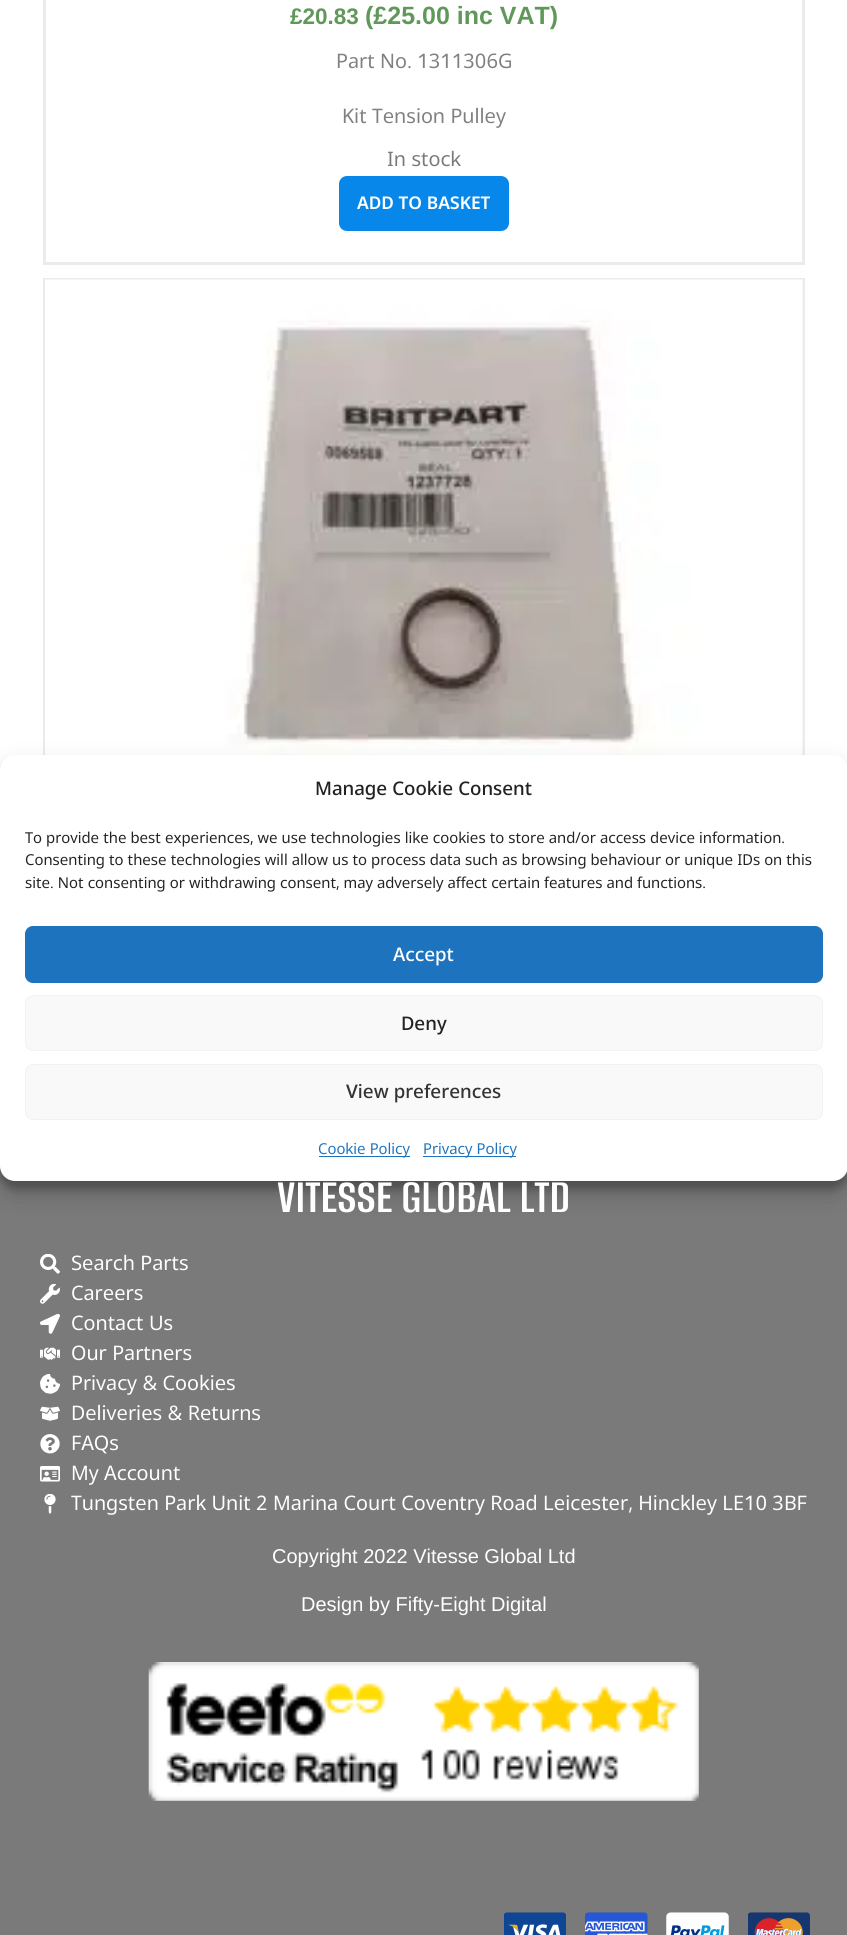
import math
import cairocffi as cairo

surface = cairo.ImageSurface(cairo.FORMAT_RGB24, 847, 1935)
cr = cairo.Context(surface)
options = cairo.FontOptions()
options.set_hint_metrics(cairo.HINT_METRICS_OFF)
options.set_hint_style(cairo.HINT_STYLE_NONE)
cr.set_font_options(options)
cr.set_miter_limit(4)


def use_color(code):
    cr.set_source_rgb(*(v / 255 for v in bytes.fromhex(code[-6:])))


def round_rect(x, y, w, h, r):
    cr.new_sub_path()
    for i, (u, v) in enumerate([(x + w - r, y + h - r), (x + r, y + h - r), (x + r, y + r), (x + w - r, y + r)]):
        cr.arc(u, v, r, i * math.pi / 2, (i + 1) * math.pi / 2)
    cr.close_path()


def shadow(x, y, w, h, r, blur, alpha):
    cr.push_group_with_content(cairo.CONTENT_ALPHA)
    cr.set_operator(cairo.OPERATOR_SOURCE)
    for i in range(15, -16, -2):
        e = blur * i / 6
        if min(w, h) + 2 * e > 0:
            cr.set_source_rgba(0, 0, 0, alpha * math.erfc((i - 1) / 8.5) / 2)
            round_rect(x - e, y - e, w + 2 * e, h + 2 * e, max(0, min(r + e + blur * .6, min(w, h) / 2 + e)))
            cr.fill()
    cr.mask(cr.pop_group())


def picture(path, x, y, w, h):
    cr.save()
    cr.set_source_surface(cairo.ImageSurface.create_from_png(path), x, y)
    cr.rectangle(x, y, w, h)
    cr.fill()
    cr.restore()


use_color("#ffffff")
cr.paint()
cr.rectangle(44.5, -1.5, 759, 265)
use_color("#ebebeb")
cr.set_line_width(3)
cr.stroke()
cr.select_font_face("Liberation Sans", cairo.FONT_SLANT_NORMAL, cairo.FONT_WEIGHT_BOLD)
cr.set_font_size(22.5)
use_color("#60985a")
cr.move_to(290, 24)
cr.show_text("£20.83")
cr.set_font_size(25)
cr.move_to(365, 24)
cr.show_text("(£25.00 inc VAT)")
cr.select_font_face("Noto Sans Hebrew")
cr.set_font_size(20)
use_color("#808080")
cr.move_to(336, 68)
cr.show_text("Part No. 1311306G")
cr.move_to(342, 123)
cr.show_text("Kit Tension Pulley")
use_color("#7a7a7a")
cr.move_to(387, 166)
cr.show_text("In stock")
use_color("#0787ea")
round_rect(339, 176, 170, 55, 8)
cr.fill()
cr.select_font_face("Noto Sans Hebrew SemiBold")
cr.set_font_size(17.5)
use_color("#ffffff")
cr.move_to(357, 209)
cr.show_text("ADD TO BASKET")
cr.rectangle(44.5, 279.5, 759, 860)
use_color("#ebebeb")
cr.stroke()
picture("img1.png", 45, 279, 758, 476)
use_color("#7a7a7a")
cr.rectangle(0, 1166, 847, 769)
cr.fill()
use_color("#000000")
shadow(0, 763, 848, 426, 15, 4, 0.23)
shadow(0, 768, 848, 426, 15, 12.5, 0.19)
use_color("#ffffff")
round_rect(0, 755, 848, 426, 15)
cr.fill()
cr.select_font_face("Noto Sans Hebrew Medium")
cr.set_font_size(18.75)
use_color("#222222")
cr.move_to(315, 795)
cr.show_text("Manage Cookie Consent")
cr.select_font_face("Noto Sans Hebrew")
cr.set_font_size(15)
cr.move_to(25, 843)
cr.show_text("To provide the best experiences, we use technologies like cookies to store and/or access device information.")
cr.move_to(25, 865)
cr.show_text("Consenting to these technologies will allow us to process data such as browsing behaviour or unique IDs on this")
cr.move_to(25, 888)
cr.show_text("site. Not consenting or withdrawing consent, may adversely affect certain features and functions.")
use_color("#1e73be")
round_rect(25.5, 926.5, 797, 56, 7.5)
cr.fill_preserve()
cr.set_line_width(1)
cr.stroke()
cr.select_font_face("Noto Sans Hebrew Medium")
cr.set_font_size(18.75)
use_color("#ffffff")
cr.move_to(393, 961)
cr.show_text("Accept")
use_color("#f9f9f9")
round_rect(25.5, 995.5, 797, 55, 7.5)
cr.fill_preserve()
use_color("#f2f2f2")
cr.stroke()
use_color("#222222")
cr.move_to(401, 1030)
cr.show_text("Deny")
use_color("#f9f9f9")
round_rect(25.5, 1064.5, 797, 55, 7.5)
cr.fill_preserve()
use_color("#f2f2f2")
cr.stroke()
use_color("#333333")
cr.move_to(346, 1098)
cr.show_text("View preferences")
use_color("#1e73be")
cr.rectangle(319, 1156, 91, 1)
cr.fill()
cr.select_font_face("Noto Sans Hebrew")
cr.set_font_size(15)
cr.move_to(318, 1154)
cr.show_text("Cookie Policy")
cr.rectangle(423, 1156, 93, 1)
cr.fill()
cr.move_to(423, 1154)
cr.show_text("Privacy Policy")
cr.select_font_face("Alumni Sans SemiBold")
cr.set_font_size(50)
use_color("#ffffff")
cr.move_to(277, 1212)
cr.show_text("VITESSE GLOBAL LTD")
picture("img2.png", 40, 1254, 20, 20)
cr.select_font_face("Noto Sans Hebrew")
cr.set_font_size(20)
cr.move_to(71, 1270)
cr.show_text("Search Parts")
picture("img3.png", 40, 1284, 20, 20)
cr.move_to(71, 1300)
cr.show_text("Careers")
picture("img4.png", 40, 1314, 20, 20)
cr.move_to(71, 1330)
cr.show_text("Contact Us")
picture("img5.png", 40, 1347, 20, 13)
cr.move_to(71, 1360)
cr.show_text("Our Partners")
picture("img6.png", 40, 1374, 20, 20)
cr.move_to(71, 1390)
cr.show_text("Privacy & Cookies")
picture("img7.png", 40, 1406, 20, 15)
cr.move_to(71, 1420)
cr.show_text("Deliveries & Returns")
picture("img8.png", 40, 1434, 20, 20)
cr.move_to(71, 1450)
cr.show_text("FAQs")
picture("img9.png", 40, 1466, 20, 16)
cr.move_to(71, 1480)
cr.show_text("My Account")
picture("img10.png", 44, 1494, 12, 20)
cr.move_to(71, 1510)
cr.show_text("Tungsten Park Unit 2 Marina Court Coventry Road Leicester, Hinckley LE10 3BF")
cr.select_font_face("Liberation Sans")
cr.move_to(272, 1563)
cr.show_text("Copyright 2022 Vitesse Global Ltd")
cr.move_to(301, 1611)
cr.show_text("Design by Fifty-Eight Digital")
picture("img11.png", 148, 1662, 551, 139)
picture("img12.png", 504, 1912, 62, 23)
picture("img13.png", 585, 1912, 63, 23)
picture("img14.png", 666, 1912, 63, 23)
picture("img15.png", 748, 1912, 62, 23)
surface.write_to_png("result.png")
